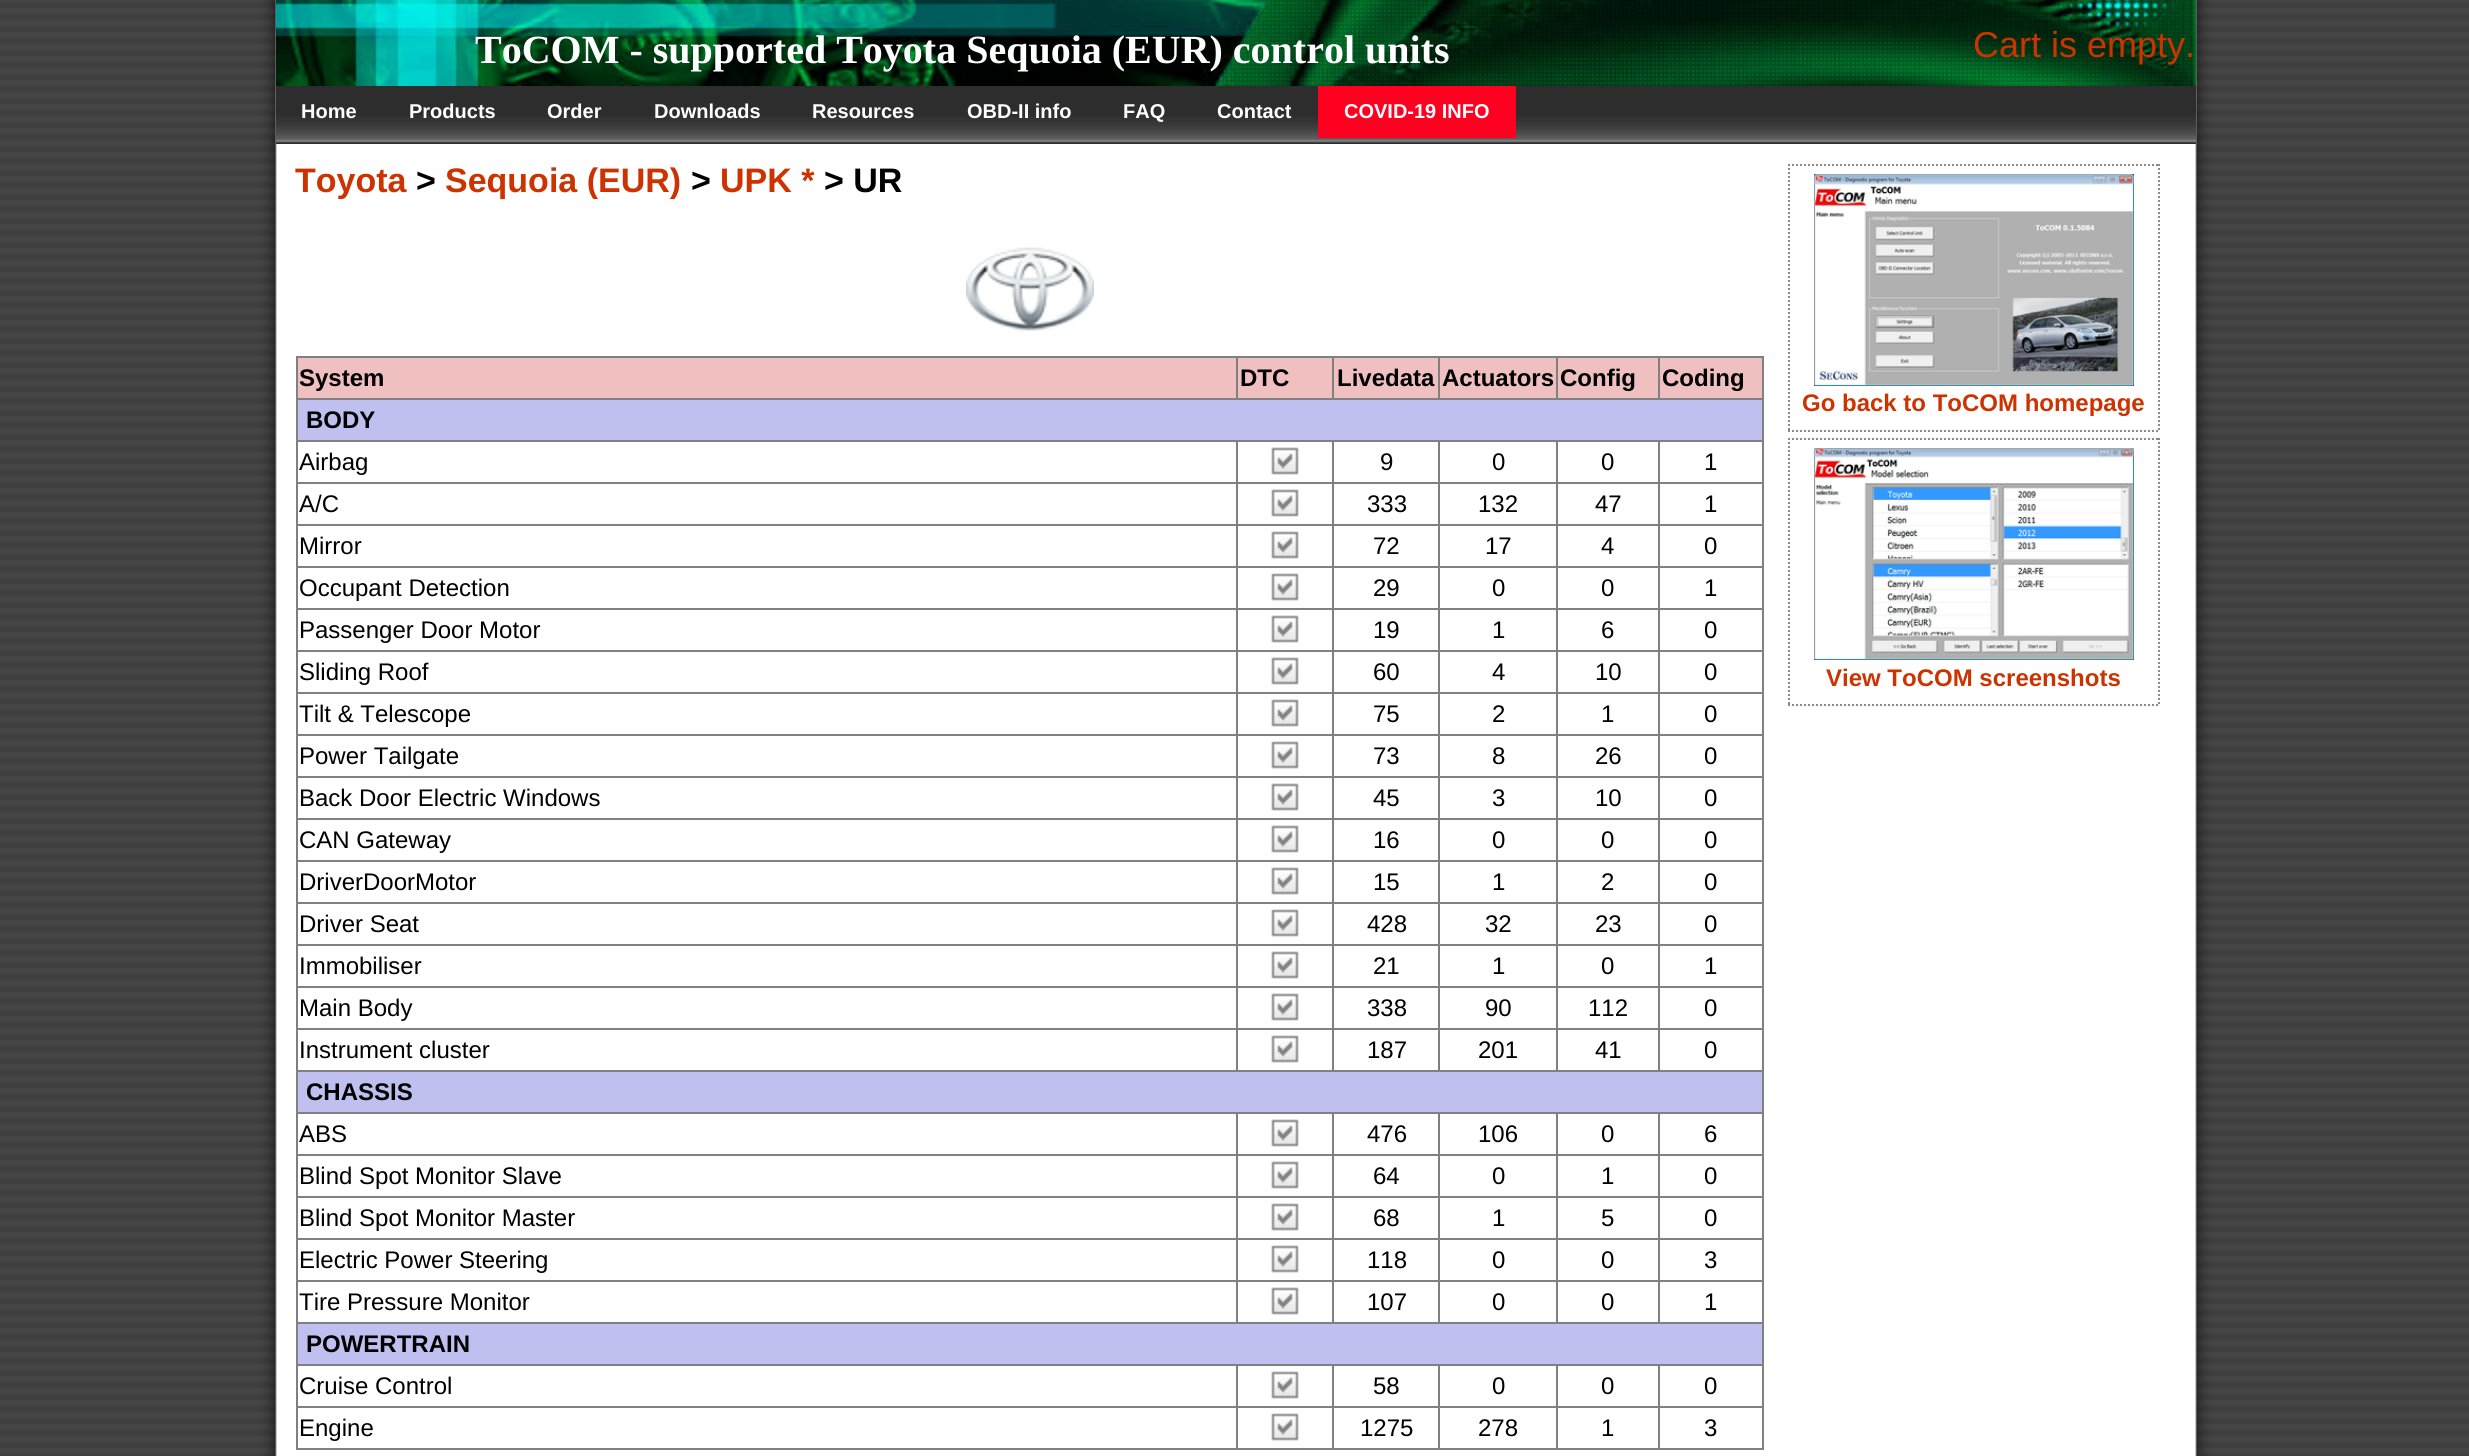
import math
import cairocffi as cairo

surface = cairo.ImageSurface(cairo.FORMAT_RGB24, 2469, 1456)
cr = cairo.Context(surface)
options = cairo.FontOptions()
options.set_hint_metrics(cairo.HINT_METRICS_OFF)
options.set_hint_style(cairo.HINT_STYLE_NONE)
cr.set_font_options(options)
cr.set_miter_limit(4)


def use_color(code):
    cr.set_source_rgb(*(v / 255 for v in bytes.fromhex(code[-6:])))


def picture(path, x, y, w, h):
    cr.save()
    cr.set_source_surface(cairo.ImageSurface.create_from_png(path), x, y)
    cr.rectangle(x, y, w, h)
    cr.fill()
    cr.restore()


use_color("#ffffff")
cr.paint()
picture("img1.png", 0, 0, 2469, 1456)
picture("img2.png", 256, 0, 1960, 1456)
picture("img3.png", 276, 0, 1920, 86)
cr.select_font_face("Liberation Serif", cairo.FONT_SLANT_NORMAL, cairo.FONT_WEIGHT_BOLD)
cr.set_font_size(40)
use_color("#ffffff")
cr.move_to(475, 63)
cr.show_text("ToCOM - supported Toyota Sequoia (EUR) control units")
cr.select_font_face("Liberation Sans")
cr.set_font_size(36)
use_color("#cc3300")
cr.move_to(1973, 57)
cr.show_text("Cart is empty.")
picture("img4.png", 276, 86, 1920, 58)
cr.select_font_face("Liberation Sans", cairo.FONT_SLANT_NORMAL, cairo.FONT_WEIGHT_BOLD)
cr.set_font_size(20)
use_color("#ffffff")
cr.move_to(301, 118)
cr.show_text("Home")
cr.move_to(409, 118)
cr.show_text("Products")
cr.move_to(547, 118)
cr.show_text("Order")
cr.move_to(654, 118)
cr.show_text("Downloads")
cr.move_to(812, 118)
cr.show_text("Resources")
cr.move_to(967, 118)
cr.show_text("OBD-II info")
cr.move_to(1123, 118)
cr.show_text("FAQ")
cr.move_to(1217, 118)
cr.show_text("Contact")
use_color("#ff0020")
cr.rectangle(1318, 86, 198, 52)
cr.fill()
use_color("#ffffff")
cr.move_to(1344, 118)
cr.show_text("COVID-19 INFO")
cr.set_font_size(34)
use_color("#cc3300")
cr.move_to(295, 192)
cr.show_text("Toyota")
use_color("#000000")
cr.move_to(416, 192)
cr.show_text(">")
use_color("#cc3300")
cr.move_to(445, 192)
cr.show_text("Sequoia (EUR)")
use_color("#000000")
cr.move_to(691, 192)
cr.show_text(">")
use_color("#cc3300")
cr.move_to(720, 192)
cr.show_text("UPK *")
use_color("#000000")
cr.move_to(824, 192)
cr.show_text("> UR")
picture("img5.png", 966, 247, 128, 84)
use_color("#808080")
cr.rectangle(296, 356, 1468, 2)
cr.fill()
cr.rectangle(1762, 356, 2, 1094)
cr.fill()
cr.rectangle(296, 1448, 1468, 2)
cr.fill()
cr.rectangle(296, 356, 2, 1094)
cr.fill()
use_color("#f0c0c0")
cr.rectangle(298, 358, 1464, 40)
cr.fill()
cr.set_font_size(24)
use_color("#000000")
cr.move_to(299, 386)
cr.show_text("System")
use_color("#808080")
cr.rectangle(296, 398, 1468, 2)
cr.fill()
cr.rectangle(1236, 356, 2, 44)
cr.fill()
use_color("#000000")
cr.move_to(1240, 386)
cr.show_text("DTC")
use_color("#808080")
cr.rectangle(1332, 356, 2, 44)
cr.fill()
use_color("#000000")
cr.move_to(1337, 386)
cr.show_text("Livedata")
use_color("#808080")
cr.rectangle(1438, 356, 2, 44)
cr.fill()
use_color("#000000")
cr.move_to(1442, 386)
cr.show_text("Actuators")
use_color("#808080")
cr.rectangle(1556, 356, 2, 44)
cr.fill()
use_color("#000000")
cr.move_to(1560, 386)
cr.show_text("Config")
use_color("#808080")
cr.rectangle(1658, 356, 2, 44)
cr.fill()
use_color("#000000")
cr.move_to(1662, 386)
cr.show_text("Coding")
use_color("#c0c0f0")
cr.rectangle(298, 400, 1464, 40)
cr.fill()
use_color("#000000")
cr.move_to(306, 428)
cr.show_text("BODY")
use_color("#808080")
cr.rectangle(1658, 440, 106, 2)
cr.fill()
cr.rectangle(1658, 482, 106, 2)
cr.fill()
cr.rectangle(1658, 524, 106, 2)
cr.fill()
cr.rectangle(1658, 566, 106, 2)
cr.fill()
cr.rectangle(1658, 608, 106, 2)
cr.fill()
cr.rectangle(1658, 650, 106, 2)
cr.fill()
cr.rectangle(1658, 692, 106, 2)
cr.fill()
cr.rectangle(1658, 734, 106, 2)
cr.fill()
cr.rectangle(1658, 776, 106, 2)
cr.fill()
cr.rectangle(1658, 818, 106, 2)
cr.fill()
cr.rectangle(1658, 860, 106, 2)
cr.fill()
cr.rectangle(1658, 902, 106, 2)
cr.fill()
cr.rectangle(1658, 944, 106, 2)
cr.fill()
cr.rectangle(1658, 986, 106, 2)
cr.fill()
cr.rectangle(1658, 1028, 106, 2)
cr.fill()
cr.rectangle(296, 1070, 1468, 2)
cr.fill()
cr.rectangle(1658, 1028, 2, 44)
cr.fill()
cr.rectangle(1556, 1028, 104, 2)
cr.fill()
cr.rectangle(1658, 986, 2, 44)
cr.fill()
cr.rectangle(1556, 986, 104, 2)
cr.fill()
cr.rectangle(1658, 944, 2, 44)
cr.fill()
cr.rectangle(1556, 944, 104, 2)
cr.fill()
cr.rectangle(1658, 902, 2, 44)
cr.fill()
cr.rectangle(1556, 902, 104, 2)
cr.fill()
cr.rectangle(1658, 860, 2, 44)
cr.fill()
cr.rectangle(1556, 860, 104, 2)
cr.fill()
cr.rectangle(1658, 818, 2, 44)
cr.fill()
cr.rectangle(1556, 818, 104, 2)
cr.fill()
cr.rectangle(1658, 776, 2, 44)
cr.fill()
cr.rectangle(1556, 776, 104, 2)
cr.fill()
cr.rectangle(1658, 734, 2, 44)
cr.fill()
cr.rectangle(1556, 734, 104, 2)
cr.fill()
cr.rectangle(1658, 692, 2, 44)
cr.fill()
cr.rectangle(1556, 692, 104, 2)
cr.fill()
cr.rectangle(1658, 650, 2, 44)
cr.fill()
cr.rectangle(1556, 650, 104, 2)
cr.fill()
cr.rectangle(1658, 608, 2, 44)
cr.fill()
cr.rectangle(1556, 608, 104, 2)
cr.fill()
cr.rectangle(1658, 566, 2, 44)
cr.fill()
cr.rectangle(1556, 566, 104, 2)
cr.fill()
cr.rectangle(1658, 524, 2, 44)
cr.fill()
cr.rectangle(1556, 524, 104, 2)
cr.fill()
cr.rectangle(1658, 482, 2, 44)
cr.fill()
cr.rectangle(1556, 482, 104, 2)
cr.fill()
cr.rectangle(1658, 440, 2, 44)
cr.fill()
cr.rectangle(1556, 440, 104, 2)
cr.fill()
cr.rectangle(1556, 1028, 2, 44)
cr.fill()
cr.rectangle(1438, 1028, 120, 2)
cr.fill()
cr.rectangle(1556, 986, 2, 44)
cr.fill()
cr.rectangle(1438, 986, 120, 2)
cr.fill()
cr.rectangle(1556, 944, 2, 44)
cr.fill()
cr.rectangle(1438, 944, 120, 2)
cr.fill()
cr.rectangle(1556, 902, 2, 44)
cr.fill()
cr.rectangle(1438, 902, 120, 2)
cr.fill()
cr.rectangle(1556, 860, 2, 44)
cr.fill()
cr.rectangle(1438, 860, 120, 2)
cr.fill()
cr.rectangle(1556, 818, 2, 44)
cr.fill()
cr.rectangle(1438, 818, 120, 2)
cr.fill()
cr.rectangle(1556, 776, 2, 44)
cr.fill()
cr.rectangle(1438, 776, 120, 2)
cr.fill()
cr.rectangle(1556, 734, 2, 44)
cr.fill()
cr.rectangle(1438, 734, 120, 2)
cr.fill()
cr.rectangle(1556, 692, 2, 44)
cr.fill()
cr.rectangle(1438, 692, 120, 2)
cr.fill()
cr.rectangle(1556, 650, 2, 44)
cr.fill()
cr.rectangle(1438, 650, 120, 2)
cr.fill()
cr.rectangle(1556, 608, 2, 44)
cr.fill()
cr.rectangle(1438, 608, 120, 2)
cr.fill()
cr.rectangle(1556, 566, 2, 44)
cr.fill()
cr.rectangle(1438, 566, 120, 2)
cr.fill()
cr.rectangle(1556, 524, 2, 44)
cr.fill()
cr.rectangle(1438, 524, 120, 2)
cr.fill()
cr.rectangle(1556, 482, 2, 44)
cr.fill()
cr.rectangle(1438, 482, 120, 2)
cr.fill()
cr.rectangle(1556, 440, 2, 44)
cr.fill()
cr.rectangle(1438, 440, 120, 2)
cr.fill()
cr.rectangle(1438, 1028, 2, 44)
cr.fill()
cr.rectangle(1332, 1028, 108, 2)
cr.fill()
cr.rectangle(1438, 986, 2, 44)
cr.fill()
cr.rectangle(1332, 986, 108, 2)
cr.fill()
cr.rectangle(1438, 944, 2, 44)
cr.fill()
cr.rectangle(1332, 944, 108, 2)
cr.fill()
cr.rectangle(1438, 902, 2, 44)
cr.fill()
cr.rectangle(1332, 902, 108, 2)
cr.fill()
cr.rectangle(1438, 860, 2, 44)
cr.fill()
cr.rectangle(1332, 860, 108, 2)
cr.fill()
cr.rectangle(1438, 818, 2, 44)
cr.fill()
cr.rectangle(1332, 818, 108, 2)
cr.fill()
cr.rectangle(1438, 776, 2, 44)
cr.fill()
cr.rectangle(1332, 776, 108, 2)
cr.fill()
cr.rectangle(1438, 734, 2, 44)
cr.fill()
cr.rectangle(1332, 734, 108, 2)
cr.fill()
cr.rectangle(1438, 692, 2, 44)
cr.fill()
cr.rectangle(1332, 692, 108, 2)
cr.fill()
cr.rectangle(1438, 650, 2, 44)
cr.fill()
cr.rectangle(1332, 650, 108, 2)
cr.fill()
cr.rectangle(1438, 608, 2, 44)
cr.fill()
cr.rectangle(1332, 608, 108, 2)
cr.fill()
cr.rectangle(1438, 566, 2, 44)
cr.fill()
cr.rectangle(1332, 566, 108, 2)
cr.fill()
cr.rectangle(1438, 524, 2, 44)
cr.fill()
cr.rectangle(1332, 524, 108, 2)
cr.fill()
cr.rectangle(1438, 482, 2, 44)
cr.fill()
cr.rectangle(1332, 482, 108, 2)
cr.fill()
cr.rectangle(1438, 440, 2, 44)
cr.fill()
cr.rectangle(1332, 440, 108, 2)
cr.fill()
cr.rectangle(1332, 1028, 2, 44)
cr.fill()
cr.rectangle(1236, 1028, 98, 2)
cr.fill()
cr.rectangle(1332, 986, 2, 44)
cr.fill()
cr.rectangle(1236, 986, 98, 2)
cr.fill()
cr.rectangle(1332, 944, 2, 44)
cr.fill()
cr.rectangle(1236, 944, 98, 2)
cr.fill()
cr.rectangle(1332, 902, 2, 44)
cr.fill()
cr.rectangle(1236, 902, 98, 2)
cr.fill()
cr.rectangle(1332, 860, 2, 44)
cr.fill()
cr.rectangle(1236, 860, 98, 2)
cr.fill()
cr.rectangle(1332, 818, 2, 44)
cr.fill()
cr.rectangle(1236, 818, 98, 2)
cr.fill()
cr.rectangle(1332, 776, 2, 44)
cr.fill()
cr.rectangle(1236, 776, 98, 2)
cr.fill()
cr.rectangle(1332, 734, 2, 44)
cr.fill()
cr.rectangle(1236, 734, 98, 2)
cr.fill()
cr.rectangle(1332, 692, 2, 44)
cr.fill()
cr.rectangle(1236, 692, 98, 2)
cr.fill()
cr.rectangle(1332, 650, 2, 44)
cr.fill()
cr.rectangle(1236, 650, 98, 2)
cr.fill()
cr.rectangle(1332, 608, 2, 44)
cr.fill()
cr.rectangle(1236, 608, 98, 2)
cr.fill()
cr.rectangle(1332, 566, 2, 44)
cr.fill()
cr.rectangle(1236, 566, 98, 2)
cr.fill()
cr.rectangle(1332, 524, 2, 44)
cr.fill()
cr.rectangle(1236, 524, 98, 2)
cr.fill()
cr.rectangle(1332, 482, 2, 44)
cr.fill()
cr.rectangle(1236, 482, 98, 2)
cr.fill()
cr.rectangle(1332, 440, 2, 44)
cr.fill()
cr.rectangle(1236, 440, 98, 2)
cr.fill()
cr.rectangle(1236, 1028, 2, 44)
cr.fill()
cr.rectangle(296, 1028, 942, 2)
cr.fill()
cr.rectangle(1236, 986, 2, 44)
cr.fill()
cr.rectangle(296, 986, 942, 2)
cr.fill()
cr.rectangle(1236, 944, 2, 44)
cr.fill()
cr.rectangle(296, 944, 942, 2)
cr.fill()
cr.rectangle(1236, 902, 2, 44)
cr.fill()
cr.rectangle(296, 902, 942, 2)
cr.fill()
cr.rectangle(1236, 860, 2, 44)
cr.fill()
cr.rectangle(296, 860, 942, 2)
cr.fill()
cr.rectangle(1236, 818, 2, 44)
cr.fill()
cr.rectangle(296, 818, 942, 2)
cr.fill()
cr.rectangle(1236, 776, 2, 44)
cr.fill()
cr.rectangle(296, 776, 942, 2)
cr.fill()
cr.rectangle(1236, 734, 2, 44)
cr.fill()
cr.rectangle(296, 734, 942, 2)
cr.fill()
cr.rectangle(1236, 692, 2, 44)
cr.fill()
cr.rectangle(296, 692, 942, 2)
cr.fill()
cr.rectangle(1236, 650, 2, 44)
cr.fill()
cr.rectangle(296, 650, 942, 2)
cr.fill()
cr.rectangle(1236, 608, 2, 44)
cr.fill()
cr.rectangle(296, 608, 942, 2)
cr.fill()
cr.rectangle(1236, 566, 2, 44)
cr.fill()
cr.rectangle(296, 566, 942, 2)
cr.fill()
cr.rectangle(1236, 524, 2, 44)
cr.fill()
cr.rectangle(296, 524, 942, 2)
cr.fill()
cr.rectangle(1236, 482, 2, 44)
cr.fill()
cr.rectangle(296, 482, 942, 2)
cr.fill()
cr.rectangle(1236, 440, 2, 44)
cr.fill()
cr.rectangle(296, 440, 942, 2)
cr.fill()
cr.select_font_face("Liberation Sans")
use_color("#000000")
cr.move_to(299, 470)
cr.show_text("Airbag")
picture("img6.png", 1271, 447, 28, 28)
cr.move_to(1380, 470)
cr.show_text("9")
cr.move_to(1492, 470)
cr.show_text("0")
cr.move_to(1601, 470)
cr.show_text("0")
cr.move_to(1704, 470)
cr.show_text("1")
cr.move_to(299, 512)
cr.show_text("A/C")
picture("img6.png", 1271, 489, 28, 28)
cr.move_to(1367, 512)
cr.show_text("333")
cr.move_to(1478, 512)
cr.show_text("132")
cr.move_to(1595, 512)
cr.show_text("47")
cr.move_to(1704, 512)
cr.show_text("1")
cr.move_to(299, 554)
cr.show_text("Mirror")
picture("img6.png", 1271, 531, 28, 28)
cr.move_to(1373, 554)
cr.show_text("72")
cr.move_to(1485, 554)
cr.show_text("17")
cr.move_to(1601, 554)
cr.show_text("4")
cr.move_to(1704, 554)
cr.show_text("0")
cr.move_to(299, 596)
cr.show_text("Occupant Detection")
picture("img6.png", 1271, 573, 28, 28)
cr.move_to(1373, 596)
cr.show_text("29")
cr.move_to(1492, 596)
cr.show_text("0")
cr.move_to(1601, 596)
cr.show_text("0")
cr.move_to(1704, 596)
cr.show_text("1")
cr.move_to(299, 638)
cr.show_text("Passenger Door Motor")
picture("img6.png", 1271, 615, 28, 28)
cr.move_to(1373, 638)
cr.show_text("19")
cr.move_to(1492, 638)
cr.show_text("1")
cr.move_to(1601, 638)
cr.show_text("6")
cr.move_to(1704, 638)
cr.show_text("0")
cr.move_to(299, 680)
cr.show_text("Sliding Roof")
picture("img6.png", 1271, 657, 28, 28)
cr.move_to(1373, 680)
cr.show_text("60")
cr.move_to(1492, 680)
cr.show_text("4")
cr.move_to(1595, 680)
cr.show_text("10")
cr.move_to(1704, 680)
cr.show_text("0")
cr.move_to(299, 722)
cr.show_text("Tilt & Telescope")
picture("img6.png", 1271, 699, 28, 28)
cr.move_to(1373, 722)
cr.show_text("75")
cr.move_to(1492, 722)
cr.show_text("2")
cr.move_to(1601, 722)
cr.show_text("1")
cr.move_to(1704, 722)
cr.show_text("0")
cr.move_to(299, 764)
cr.show_text("Power Tailgate")
picture("img6.png", 1271, 741, 28, 28)
cr.move_to(1373, 764)
cr.show_text("73")
cr.move_to(1492, 764)
cr.show_text("8")
cr.move_to(1595, 764)
cr.show_text("26")
cr.move_to(1704, 764)
cr.show_text("0")
cr.move_to(299, 806)
cr.show_text("Back Door Electric Windows")
picture("img6.png", 1271, 783, 28, 28)
cr.move_to(1373, 806)
cr.show_text("45")
cr.move_to(1492, 806)
cr.show_text("3")
cr.move_to(1595, 806)
cr.show_text("10")
cr.move_to(1704, 806)
cr.show_text("0")
cr.move_to(299, 848)
cr.show_text("CAN Gateway")
picture("img6.png", 1271, 825, 28, 28)
cr.move_to(1373, 848)
cr.show_text("16")
cr.move_to(1492, 848)
cr.show_text("0")
cr.move_to(1601, 848)
cr.show_text("0")
cr.move_to(1704, 848)
cr.show_text("0")
cr.move_to(299, 890)
cr.show_text("DriverDoorMotor")
picture("img6.png", 1271, 867, 28, 28)
cr.move_to(1373, 890)
cr.show_text("15")
cr.move_to(1492, 890)
cr.show_text("1")
cr.move_to(1601, 890)
cr.show_text("2")
cr.move_to(1704, 890)
cr.show_text("0")
cr.move_to(299, 932)
cr.show_text("Driver Seat")
picture("img6.png", 1271, 909, 28, 28)
cr.move_to(1367, 932)
cr.show_text("428")
cr.move_to(1485, 932)
cr.show_text("32")
cr.move_to(1595, 932)
cr.show_text("23")
cr.move_to(1704, 932)
cr.show_text("0")
cr.move_to(299, 974)
cr.show_text("Immobiliser")
picture("img6.png", 1271, 951, 28, 28)
cr.move_to(1373, 974)
cr.show_text("21")
cr.move_to(1492, 974)
cr.show_text("1")
cr.move_to(1601, 974)
cr.show_text("0")
cr.move_to(1704, 974)
cr.show_text("1")
cr.move_to(299, 1016)
cr.show_text("Main Body")
picture("img6.png", 1271, 993, 28, 28)
cr.move_to(1367, 1016)
cr.show_text("338")
cr.move_to(1485, 1016)
cr.show_text("90")
cr.move_to(1588, 1016)
cr.show_text("112")
cr.move_to(1704, 1016)
cr.show_text("0")
cr.move_to(299, 1058)
cr.show_text("Instrument cluster")
picture("img6.png", 1271, 1035, 28, 28)
cr.move_to(1367, 1058)
cr.show_text("187")
cr.move_to(1478, 1058)
cr.show_text("201")
cr.move_to(1595, 1058)
cr.show_text("41")
cr.move_to(1704, 1058)
cr.show_text("0")
use_color("#c0c0f0")
cr.rectangle(298, 1072, 1464, 40)
cr.fill()
cr.select_font_face("Liberation Sans", cairo.FONT_SLANT_NORMAL, cairo.FONT_WEIGHT_BOLD)
use_color("#000000")
cr.move_to(306, 1100)
cr.show_text("CHASSIS")
use_color("#808080")
cr.rectangle(1658, 1112, 106, 2)
cr.fill()
cr.rectangle(1658, 1154, 106, 2)
cr.fill()
cr.rectangle(1658, 1196, 106, 2)
cr.fill()
cr.rectangle(1658, 1238, 106, 2)
cr.fill()
cr.rectangle(1658, 1280, 106, 2)
cr.fill()
cr.rectangle(296, 1322, 1468, 2)
cr.fill()
cr.rectangle(1658, 1280, 2, 44)
cr.fill()
cr.rectangle(1556, 1280, 104, 2)
cr.fill()
cr.rectangle(1658, 1238, 2, 44)
cr.fill()
cr.rectangle(1556, 1238, 104, 2)
cr.fill()
cr.rectangle(1658, 1196, 2, 44)
cr.fill()
cr.rectangle(1556, 1196, 104, 2)
cr.fill()
cr.rectangle(1658, 1154, 2, 44)
cr.fill()
cr.rectangle(1556, 1154, 104, 2)
cr.fill()
cr.rectangle(1658, 1112, 2, 44)
cr.fill()
cr.rectangle(1556, 1112, 104, 2)
cr.fill()
cr.rectangle(1556, 1280, 2, 44)
cr.fill()
cr.rectangle(1438, 1280, 120, 2)
cr.fill()
cr.rectangle(1556, 1238, 2, 44)
cr.fill()
cr.rectangle(1438, 1238, 120, 2)
cr.fill()
cr.rectangle(1556, 1196, 2, 44)
cr.fill()
cr.rectangle(1438, 1196, 120, 2)
cr.fill()
cr.rectangle(1556, 1154, 2, 44)
cr.fill()
cr.rectangle(1438, 1154, 120, 2)
cr.fill()
cr.rectangle(1556, 1112, 2, 44)
cr.fill()
cr.rectangle(1438, 1112, 120, 2)
cr.fill()
cr.rectangle(1438, 1280, 2, 44)
cr.fill()
cr.rectangle(1332, 1280, 108, 2)
cr.fill()
cr.rectangle(1438, 1238, 2, 44)
cr.fill()
cr.rectangle(1332, 1238, 108, 2)
cr.fill()
cr.rectangle(1438, 1196, 2, 44)
cr.fill()
cr.rectangle(1332, 1196, 108, 2)
cr.fill()
cr.rectangle(1438, 1154, 2, 44)
cr.fill()
cr.rectangle(1332, 1154, 108, 2)
cr.fill()
cr.rectangle(1438, 1112, 2, 44)
cr.fill()
cr.rectangle(1332, 1112, 108, 2)
cr.fill()
cr.rectangle(1332, 1280, 2, 44)
cr.fill()
cr.rectangle(1236, 1280, 98, 2)
cr.fill()
cr.rectangle(1332, 1238, 2, 44)
cr.fill()
cr.rectangle(1236, 1238, 98, 2)
cr.fill()
cr.rectangle(1332, 1196, 2, 44)
cr.fill()
cr.rectangle(1236, 1196, 98, 2)
cr.fill()
cr.rectangle(1332, 1154, 2, 44)
cr.fill()
cr.rectangle(1236, 1154, 98, 2)
cr.fill()
cr.rectangle(1332, 1112, 2, 44)
cr.fill()
cr.rectangle(1236, 1112, 98, 2)
cr.fill()
cr.rectangle(1236, 1280, 2, 44)
cr.fill()
cr.rectangle(296, 1280, 942, 2)
cr.fill()
cr.rectangle(1236, 1238, 2, 44)
cr.fill()
cr.rectangle(296, 1238, 942, 2)
cr.fill()
cr.rectangle(1236, 1196, 2, 44)
cr.fill()
cr.rectangle(296, 1196, 942, 2)
cr.fill()
cr.rectangle(1236, 1154, 2, 44)
cr.fill()
cr.rectangle(296, 1154, 942, 2)
cr.fill()
cr.rectangle(1236, 1112, 2, 44)
cr.fill()
cr.rectangle(296, 1112, 942, 2)
cr.fill()
cr.select_font_face("Liberation Sans")
use_color("#000000")
cr.move_to(299, 1142)
cr.show_text("ABS")
picture("img6.png", 1271, 1119, 28, 28)
cr.move_to(1367, 1142)
cr.show_text("476")
cr.move_to(1478, 1142)
cr.show_text("106")
cr.move_to(1601, 1142)
cr.show_text("0")
cr.move_to(1704, 1142)
cr.show_text("6")
cr.move_to(299, 1184)
cr.show_text("Blind Spot Monitor Slave")
picture("img6.png", 1271, 1161, 28, 28)
cr.move_to(1373, 1184)
cr.show_text("64")
cr.move_to(1492, 1184)
cr.show_text("0")
cr.move_to(1601, 1184)
cr.show_text("1")
cr.move_to(1704, 1184)
cr.show_text("0")
cr.move_to(299, 1226)
cr.show_text("Blind Spot Monitor Master")
picture("img6.png", 1271, 1203, 28, 28)
cr.move_to(1373, 1226)
cr.show_text("68")
cr.move_to(1492, 1226)
cr.show_text("1")
cr.move_to(1601, 1226)
cr.show_text("5")
cr.move_to(1704, 1226)
cr.show_text("0")
cr.move_to(299, 1268)
cr.show_text("Electric Power Steering")
picture("img6.png", 1271, 1245, 28, 28)
cr.move_to(1367, 1268)
cr.show_text("118")
cr.move_to(1492, 1268)
cr.show_text("0")
cr.move_to(1601, 1268)
cr.show_text("0")
cr.move_to(1704, 1268)
cr.show_text("3")
cr.move_to(299, 1310)
cr.show_text("Tire Pressure Monitor")
picture("img6.png", 1271, 1287, 28, 28)
cr.move_to(1367, 1310)
cr.show_text("107")
cr.move_to(1492, 1310)
cr.show_text("0")
cr.move_to(1601, 1310)
cr.show_text("0")
cr.move_to(1704, 1310)
cr.show_text("1")
use_color("#c0c0f0")
cr.rectangle(298, 1324, 1464, 40)
cr.fill()
cr.select_font_face("Liberation Sans", cairo.FONT_SLANT_NORMAL, cairo.FONT_WEIGHT_BOLD)
use_color("#000000")
cr.move_to(306, 1352)
cr.show_text("POWERTRAIN")
use_color("#808080")
cr.rectangle(1658, 1364, 106, 2)
cr.fill()
cr.rectangle(1658, 1406, 106, 2)
cr.fill()
cr.rectangle(1658, 1406, 2, 44)
cr.fill()
cr.rectangle(1556, 1406, 104, 2)
cr.fill()
cr.rectangle(1658, 1364, 2, 44)
cr.fill()
cr.rectangle(1556, 1364, 104, 2)
cr.fill()
cr.rectangle(1556, 1406, 2, 44)
cr.fill()
cr.rectangle(1438, 1406, 120, 2)
cr.fill()
cr.rectangle(1556, 1364, 2, 44)
cr.fill()
cr.rectangle(1438, 1364, 120, 2)
cr.fill()
cr.rectangle(1438, 1406, 2, 44)
cr.fill()
cr.rectangle(1332, 1406, 108, 2)
cr.fill()
cr.rectangle(1438, 1364, 2, 44)
cr.fill()
cr.rectangle(1332, 1364, 108, 2)
cr.fill()
cr.rectangle(1332, 1406, 2, 44)
cr.fill()
cr.rectangle(1236, 1406, 98, 2)
cr.fill()
cr.rectangle(1332, 1364, 2, 44)
cr.fill()
cr.rectangle(1236, 1364, 98, 2)
cr.fill()
cr.rectangle(1236, 1406, 2, 44)
cr.fill()
cr.rectangle(296, 1406, 942, 2)
cr.fill()
cr.rectangle(1236, 1364, 2, 44)
cr.fill()
cr.rectangle(296, 1364, 942, 2)
cr.fill()
cr.select_font_face("Liberation Sans")
use_color("#000000")
cr.move_to(299, 1394)
cr.show_text("Cruise Control")
picture("img6.png", 1271, 1371, 28, 28)
cr.move_to(1373, 1394)
cr.show_text("58")
cr.move_to(1492, 1394)
cr.show_text("0")
cr.move_to(1601, 1394)
cr.show_text("0")
cr.move_to(1704, 1394)
cr.show_text("0")
cr.move_to(299, 1436)
cr.show_text("Engine")
picture("img6.png", 1271, 1413, 28, 28)
cr.move_to(1360, 1436)
cr.show_text("1275")
cr.move_to(1478, 1436)
cr.show_text("278")
cr.move_to(1601, 1436)
cr.show_text("1")
cr.move_to(1704, 1436)
cr.show_text("3")
cr.new_path()
cr.move_to(1788, 165)
cr.line_to(2160, 165)
use_color("#898989")
cr.set_dash([2, 2])
cr.stroke()
cr.new_path()
cr.move_to(2159, 164)
cr.line_to(2159, 432)
cr.stroke()
cr.new_path()
cr.move_to(1788, 431)
cr.line_to(2160, 431)
cr.stroke()
cr.new_path()
cr.move_to(1789, 164)
cr.line_to(1789, 432)
cr.stroke()
picture("img7.png", 1814, 174, 320, 212)
cr.select_font_face("Liberation Sans", cairo.FONT_SLANT_NORMAL, cairo.FONT_WEIGHT_BOLD)
use_color("#cc3300")
cr.move_to(1802, 411)
cr.show_text("Go back to ToCOM homepage")
cr.new_path()
cr.move_to(1788, 439)
cr.line_to(2160, 439)
use_color("#898989")
cr.stroke()
cr.new_path()
cr.move_to(2159, 438)
cr.line_to(2159, 706)
cr.stroke()
cr.new_path()
cr.move_to(1788, 705)
cr.line_to(2160, 705)
cr.stroke()
cr.new_path()
cr.move_to(1789, 438)
cr.line_to(1789, 706)
cr.stroke()
picture("img8.png", 1814, 448, 320, 212)
use_color("#cc3300")
cr.move_to(1826, 686)
cr.show_text("View ToCOM screenshots")
surface.write_to_png("result.png")
